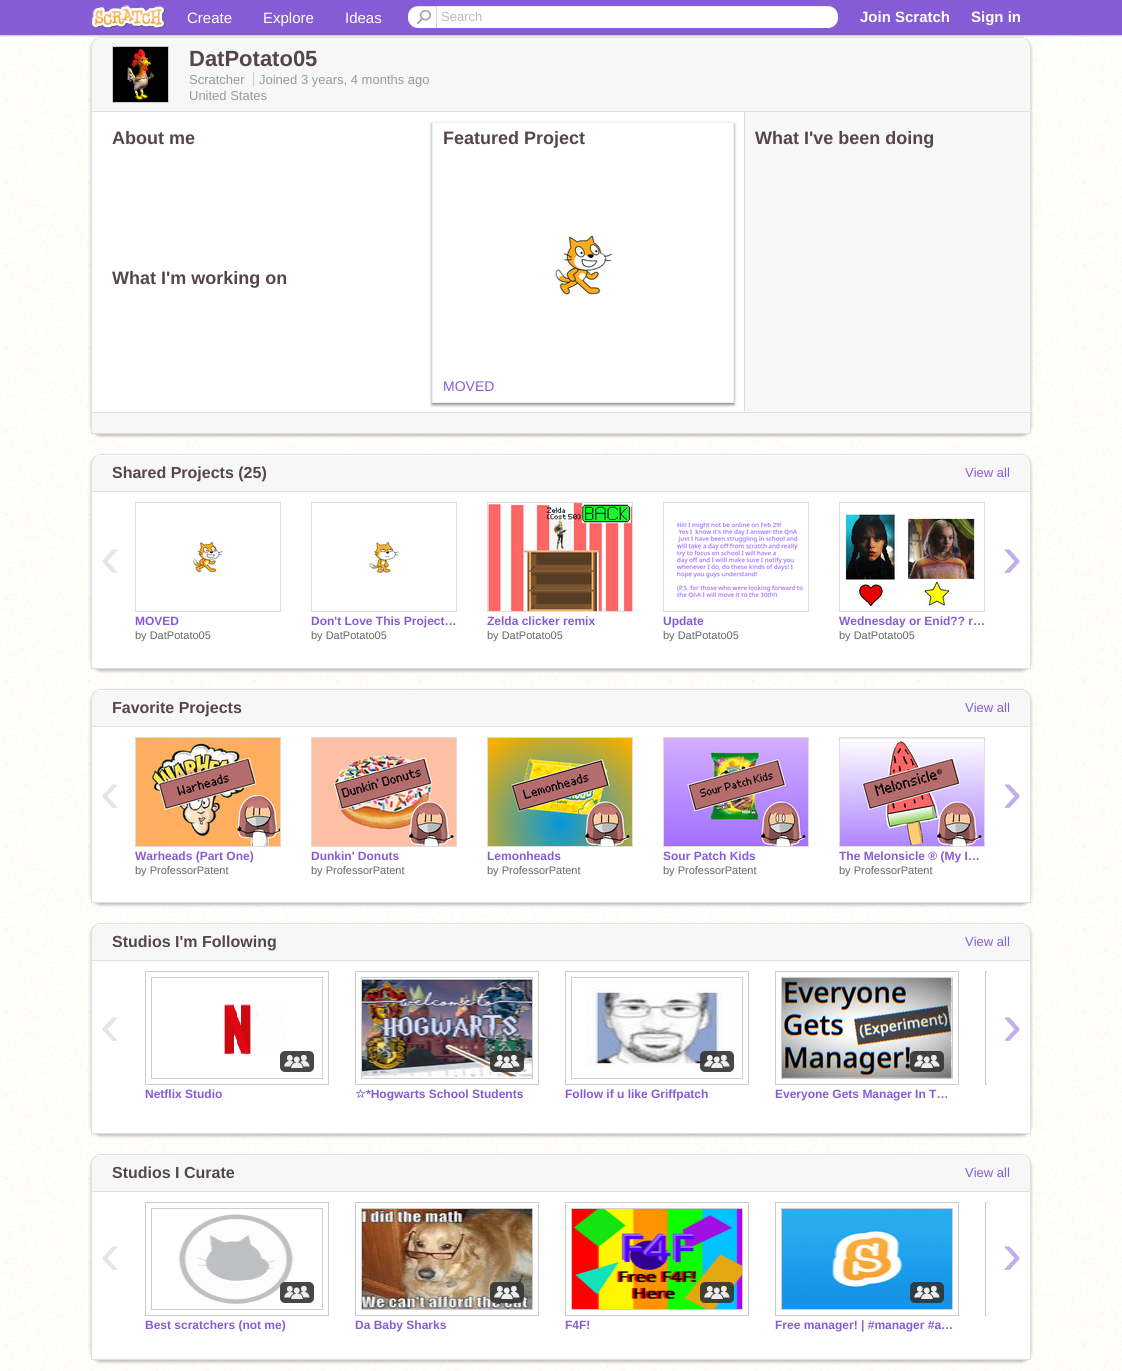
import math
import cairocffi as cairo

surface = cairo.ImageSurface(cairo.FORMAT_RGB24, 1122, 1371)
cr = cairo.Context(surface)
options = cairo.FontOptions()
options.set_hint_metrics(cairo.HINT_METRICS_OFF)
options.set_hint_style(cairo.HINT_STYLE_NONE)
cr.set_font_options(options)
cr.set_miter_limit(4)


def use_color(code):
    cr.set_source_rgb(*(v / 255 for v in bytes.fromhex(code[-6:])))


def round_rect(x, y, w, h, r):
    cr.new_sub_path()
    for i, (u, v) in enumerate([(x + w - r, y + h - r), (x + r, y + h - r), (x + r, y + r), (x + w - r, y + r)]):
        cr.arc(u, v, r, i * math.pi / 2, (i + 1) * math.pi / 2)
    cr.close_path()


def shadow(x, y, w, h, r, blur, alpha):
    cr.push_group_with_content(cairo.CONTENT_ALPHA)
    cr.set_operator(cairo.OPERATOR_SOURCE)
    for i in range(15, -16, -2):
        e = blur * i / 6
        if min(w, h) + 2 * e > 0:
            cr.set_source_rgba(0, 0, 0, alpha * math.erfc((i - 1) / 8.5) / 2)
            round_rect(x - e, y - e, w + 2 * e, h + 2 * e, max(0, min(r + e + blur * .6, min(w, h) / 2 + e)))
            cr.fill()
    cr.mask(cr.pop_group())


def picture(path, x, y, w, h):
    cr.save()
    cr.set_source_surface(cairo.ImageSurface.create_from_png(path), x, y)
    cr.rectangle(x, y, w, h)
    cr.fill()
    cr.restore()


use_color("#ffffff")
cr.paint()
picture("img1.png", 0, 35, 1122, 1336)
use_color("#221919")
shadow(91, 39, 940, 397, 10, 1.5, 0.3)
use_color("#f7f7f7")
cr.new_path()
cr.move_to(101, 37.5)
cr.line_to(1021, 37.5)
cr.curve_to(1026, 37.5, 1030.5, 42, 1030.5, 47)
cr.line_to(1030.5, 433.5)
cr.line_to(91.5, 433.5)
cr.line_to(91.5, 47)
cr.curve_to(91.5, 42, 96, 37.5, 101, 37.5)
cr.close_path()
cr.fill_preserve()
use_color("#e0e0e0")
cr.set_line_width(1)
cr.stroke()
use_color("#ffffff")
cr.rectangle(97, 38, 928, 1)
cr.fill()
use_color("#cccccc")
shadow(0, 1, 1122, 35, 0, 0.5, 1)
use_color("#855cd6")
cr.rectangle(0, 0, 1122, 35)
cr.fill()
picture("img2.png", 92, 5, 74, 25)
cr.select_font_face("Liberation Sans")
cr.set_font_size(15)
use_color("#ffffff")
cr.move_to(187, 23)
cr.show_text("Create")
cr.move_to(263, 23)
cr.show_text("Explore")
cr.move_to(345, 23)
cr.show_text("Ideas")
round_rect(408, 6, 430, 22, 10)
cr.fill()
cr.set_source_rgba(0, 0, 0, 0.07)
cr.new_path()
cr.move_to(418, 7)
cr.line_to(828, 7)
cr.curve_to(834, 7, 838, 11, 838, 17)
cr.line_to(838, 16)
cr.curve_to(838, 10, 834, 6, 828, 6)
cr.line_to(418, 6)
cr.curve_to(412, 6, 408, 10, 408, 16)
cr.line_to(408, 17)
cr.curve_to(408, 11, 412, 7, 418, 7)
cr.close_path()
cr.fill()
picture("img3.png", 417, 10, 14, 14)
cr.set_source_rgba(0, 0, 0, 0.06)
cr.rectangle(408, 6, 28, 1)
cr.fill()
cr.set_source_rgba(0.8, 0.8, 0.8, 0.8)
cr.rectangle(436, 6, 1, 22)
cr.fill()
cr.set_font_size(13)
use_color("#bbbbbb")
cr.move_to(441, 21)
cr.show_text("Search")
cr.select_font_face("Liberation Sans", cairo.FONT_SLANT_NORMAL, cairo.FONT_WEIGHT_BOLD)
cr.set_font_size(15)
use_color("#ffffff")
cr.move_to(860, 22)
cr.show_text("Join Scratch")
cr.move_to(971, 22)
cr.show_text("Sign in")
cr.rectangle(112.5, 46.5, 56, 56)
use_color("#cccccc")
cr.stroke()
picture("img4.png", 113, 47, 55, 55)
cr.set_font_size(22)
use_color("#554747")
cr.move_to(189, 66)
cr.show_text("DatPotato05")
cr.select_font_face("Liberation Sans")
cr.set_font_size(13)
use_color("#999999")
cr.move_to(189, 84)
cr.show_text("Scratcher")
use_color("#cccccc")
cr.rectangle(253, 72, 1, 15)
cr.fill()
use_color("#999999")
cr.move_to(259, 84)
cr.show_text("Joined 3 years, 4 months ago")
cr.move_to(189, 100)
cr.show_text("United States")
use_color("#ffffff")
cr.rectangle(92, 112, 652, 300)
cr.fill()
use_color("#e0e0e0")
cr.rectangle(92, 111, 938, 1)
cr.fill()
cr.select_font_face("Liberation Sans", cairo.FONT_SLANT_NORMAL, cairo.FONT_WEIGHT_BOLD)
cr.set_font_size(18)
use_color("#554747")
cr.move_to(112, 144)
cr.show_text("About me")
cr.move_to(112, 284)
cr.show_text("What I'm working on")
cr.save()
cr.set_fill_rule(cairo.FILL_RULE_EVEN_ODD)
cr.new_path()
cr.move_to(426, 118)
cr.line_to(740, 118)
cr.line_to(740, 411)
cr.line_to(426, 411)
cr.close_path()
cr.move_to(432, 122)
cr.line_to(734, 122)
cr.line_to(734, 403)
cr.line_to(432, 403)
cr.close_path()
cr.clip()
use_color("#221919")
shadow(432, 124, 302, 281, 0, 1.5, 0.5)
cr.restore()
cr.rectangle(432.5, 122.5, 301, 280)
use_color("#eeeeee")
cr.stroke()
use_color("#554747")
cr.move_to(443, 144)
cr.show_text("Featured Project")
picture("img5.png", 554, 235, 59, 60)
cr.select_font_face("Liberation Sans")
cr.set_font_size(14)
use_color("#855cd6")
cr.move_to(443, 391)
cr.show_text("MOVED")
use_color("#dddddd")
cr.rectangle(744, 112, 1, 300)
cr.fill()
cr.select_font_face("Liberation Sans", cairo.FONT_SLANT_NORMAL, cairo.FONT_WEIGHT_BOLD)
cr.set_font_size(18)
use_color("#554747")
cr.move_to(755, 144)
cr.show_text("What I've been doing")
use_color("#dddddd")
cr.rectangle(92, 412, 938, 1)
cr.fill()
use_color("#221919")
shadow(91, 456, 940, 215, 10, 1.5, 0.3)
use_color("#f7f7f7")
cr.new_path()
cr.move_to(101, 454.5)
cr.line_to(1021, 454.5)
cr.curve_to(1026, 454.5, 1030.5, 459, 1030.5, 464)
cr.line_to(1030.5, 668.5)
cr.line_to(91.5, 668.5)
cr.line_to(91.5, 464)
cr.curve_to(91.5, 459, 96, 454.5, 101, 454.5)
cr.close_path()
cr.fill_preserve()
use_color("#e0e0e0")
cr.stroke()
use_color("#ffffff")
cr.rectangle(97, 455, 928, 1)
cr.fill()
cr.set_font_size(16)
use_color("#554747")
cr.move_to(112, 478)
cr.show_text("Shared Projects (25)")
cr.select_font_face("Liberation Sans")
cr.set_font_size(13)
use_color("#855cd6")
cr.move_to(965, 477)
cr.show_text("View all")
use_color("#ffffff")
cr.rectangle(92, 492, 938, 176)
cr.fill()
use_color("#e0e0e0")
cr.rectangle(92, 491, 938, 1)
cr.fill()
cr.set_font_size(60)
use_color("#e6e6e6")
cr.move_to(100, 577)
cr.show_text("‹")
use_color("#c2aeeb")
cr.move_to(1002, 577)
cr.show_text("›")
cr.rectangle(135.5, 502.5, 145, 109)
use_color("#dddddd")
cr.stroke()
picture("img6.png", 193, 541, 30, 32)
cr.select_font_face("Liberation Sans", cairo.FONT_SLANT_NORMAL, cairo.FONT_WEIGHT_BOLD)
cr.set_font_size(12)
use_color("#855cd6")
cr.move_to(135, 625)
cr.show_text("MOVED")
cr.select_font_face("Liberation Sans")
cr.set_font_size(11)
use_color("#666666")
cr.move_to(135, 639)
cr.show_text("by DatPotato05")
cr.rectangle(311.5, 502.5, 145, 109)
use_color("#dddddd")
cr.stroke()
picture("img7.png", 369, 541, 30, 32)
cr.select_font_face("Liberation Sans", cairo.FONT_SLANT_NORMAL, cairo.FONT_WEIGHT_BOLD)
cr.set_font_size(12)
use_color("#855cd6")
cr.move_to(311, 625)
cr.show_text("Don't Love This Project…")
cr.select_font_face("Liberation Sans")
cr.set_font_size(11)
use_color("#666666")
cr.move_to(311, 639)
cr.show_text("by DatPotato05")
cr.rectangle(487.5, 502.5, 145, 109)
use_color("#dddddd")
cr.stroke()
picture("img8.png", 488, 503, 144, 108)
cr.select_font_face("Liberation Sans", cairo.FONT_SLANT_NORMAL, cairo.FONT_WEIGHT_BOLD)
cr.set_font_size(12)
use_color("#855cd6")
cr.move_to(487, 625)
cr.show_text("Zelda clicker remix")
cr.select_font_face("Liberation Sans")
cr.set_font_size(11)
use_color("#666666")
cr.move_to(487, 639)
cr.show_text("by DatPotato05")
cr.rectangle(663.5, 502.5, 145, 109)
use_color("#dddddd")
cr.stroke()
picture("img9.png", 677, 522, 126, 76)
cr.select_font_face("Liberation Sans", cairo.FONT_SLANT_NORMAL, cairo.FONT_WEIGHT_BOLD)
cr.set_font_size(12)
use_color("#855cd6")
cr.move_to(663, 625)
cr.show_text("Update")
cr.select_font_face("Liberation Sans")
cr.set_font_size(11)
use_color("#666666")
cr.move_to(663, 639)
cr.show_text("by DatPotato05")
cr.rectangle(839.5, 502.5, 145, 109)
use_color("#dddddd")
cr.stroke()
picture("img10.png", 845, 514, 130, 93)
cr.select_font_face("Liberation Sans", cairo.FONT_SLANT_NORMAL, cairo.FONT_WEIGHT_BOLD)
cr.set_font_size(12)
use_color("#855cd6")
cr.move_to(839, 625)
cr.show_text("Wednesday or Enid?? r…")
cr.select_font_face("Liberation Sans")
cr.set_font_size(11)
use_color("#666666")
cr.move_to(839, 639)
cr.show_text("by DatPotato05")
use_color("#221919")
shadow(91, 691, 940, 214, 10, 1.5, 0.3)
use_color("#f7f7f7")
cr.new_path()
cr.move_to(101, 689.5)
cr.line_to(1021, 689.5)
cr.curve_to(1026, 689.5, 1030.5, 694, 1030.5, 699)
cr.line_to(1030.5, 902.5)
cr.line_to(91.5, 902.5)
cr.line_to(91.5, 699)
cr.curve_to(91.5, 694, 96, 689.5, 101, 689.5)
cr.close_path()
cr.fill_preserve()
use_color("#e0e0e0")
cr.stroke()
use_color("#ffffff")
cr.rectangle(97, 690, 928, 1)
cr.fill()
cr.select_font_face("Liberation Sans", cairo.FONT_SLANT_NORMAL, cairo.FONT_WEIGHT_BOLD)
cr.set_font_size(16)
use_color("#554747")
cr.move_to(112, 713)
cr.show_text("Favorite Projects")
cr.select_font_face("Liberation Sans")
cr.set_font_size(13)
use_color("#855cd6")
cr.move_to(965, 712)
cr.show_text("View all")
use_color("#ffffff")
cr.rectangle(92, 727, 938, 175)
cr.fill()
use_color("#e0e0e0")
cr.rectangle(92, 726, 938, 1)
cr.fill()
cr.set_font_size(60)
use_color("#e6e6e6")
cr.move_to(100, 812)
cr.show_text("‹")
use_color("#c2aeeb")
cr.move_to(1002, 812)
cr.show_text("›")
cr.rectangle(135.5, 737.5, 145, 109)
use_color("#dddddd")
cr.stroke()
picture("img11.png", 136, 738, 144, 108)
cr.select_font_face("Liberation Sans", cairo.FONT_SLANT_NORMAL, cairo.FONT_WEIGHT_BOLD)
cr.set_font_size(12)
use_color("#855cd6")
cr.move_to(135, 860)
cr.show_text("Warheads (Part One)")
cr.select_font_face("Liberation Sans")
cr.set_font_size(11)
use_color("#666666")
cr.move_to(135, 874)
cr.show_text("by ProfessorPatent")
cr.rectangle(311.5, 737.5, 145, 109)
use_color("#dddddd")
cr.stroke()
picture("img12.png", 312, 738, 144, 108)
cr.select_font_face("Liberation Sans", cairo.FONT_SLANT_NORMAL, cairo.FONT_WEIGHT_BOLD)
cr.set_font_size(12)
use_color("#855cd6")
cr.move_to(311, 860)
cr.show_text("Dunkin' Donuts")
cr.select_font_face("Liberation Sans")
cr.set_font_size(11)
use_color("#666666")
cr.move_to(311, 874)
cr.show_text("by ProfessorPatent")
cr.rectangle(487.5, 737.5, 145, 109)
use_color("#dddddd")
cr.stroke()
picture("img13.png", 488, 738, 144, 108)
cr.select_font_face("Liberation Sans", cairo.FONT_SLANT_NORMAL, cairo.FONT_WEIGHT_BOLD)
cr.set_font_size(12)
use_color("#855cd6")
cr.move_to(487, 860)
cr.show_text("Lemonheads")
cr.select_font_face("Liberation Sans")
cr.set_font_size(11)
use_color("#666666")
cr.move_to(487, 874)
cr.show_text("by ProfessorPatent")
cr.rectangle(663.5, 737.5, 145, 109)
use_color("#dddddd")
cr.stroke()
picture("img14.png", 664, 738, 144, 108)
cr.select_font_face("Liberation Sans", cairo.FONT_SLANT_NORMAL, cairo.FONT_WEIGHT_BOLD)
cr.set_font_size(12)
use_color("#855cd6")
cr.move_to(663, 860)
cr.show_text("Sour Patch Kids")
cr.select_font_face("Liberation Sans")
cr.set_font_size(11)
use_color("#666666")
cr.move_to(663, 874)
cr.show_text("by ProfessorPatent")
cr.rectangle(839.5, 737.5, 145, 109)
use_color("#dddddd")
cr.stroke()
picture("img15.png", 840, 738, 144, 108)
cr.select_font_face("Liberation Sans", cairo.FONT_SLANT_NORMAL, cairo.FONT_WEIGHT_BOLD)
cr.set_font_size(12)
use_color("#855cd6")
cr.move_to(839, 860)
cr.show_text("The Melonsicle ® (My I…")
cr.select_font_face("Liberation Sans")
cr.set_font_size(11)
use_color("#666666")
cr.move_to(839, 874)
cr.show_text("by ProfessorPatent")
use_color("#221919")
shadow(91, 925, 940, 211, 10, 1.5, 0.3)
use_color("#f7f7f7")
cr.new_path()
cr.move_to(101, 923.5)
cr.line_to(1021, 923.5)
cr.curve_to(1026, 923.5, 1030.5, 928, 1030.5, 933)
cr.line_to(1030.5, 1133.5)
cr.line_to(91.5, 1133.5)
cr.line_to(91.5, 933)
cr.curve_to(91.5, 928, 96, 923.5, 101, 923.5)
cr.close_path()
cr.fill_preserve()
use_color("#e0e0e0")
cr.stroke()
use_color("#ffffff")
cr.rectangle(97, 924, 928, 1)
cr.fill()
cr.select_font_face("Liberation Sans", cairo.FONT_SLANT_NORMAL, cairo.FONT_WEIGHT_BOLD)
cr.set_font_size(16)
use_color("#554747")
cr.move_to(112, 947)
cr.show_text("Studios I'm Following")
cr.select_font_face("Liberation Sans")
cr.set_font_size(13)
use_color("#855cd6")
cr.move_to(965, 946)
cr.show_text("View all")
use_color("#ffffff")
cr.rectangle(92, 961, 938, 172)
cr.fill()
use_color("#e0e0e0")
cr.rectangle(92, 960, 938, 1)
cr.fill()
cr.set_font_size(60)
use_color("#e6e6e6")
cr.move_to(100, 1045)
cr.show_text("‹")
cr.save()
cr.rectangle(135, 971, 852, 142)
cr.clip()
cr.rectangle(985.5, 971.5, 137, 113)
use_color("#cccccc")
cr.stroke()
cr.restore()
use_color("#c2aeeb")
cr.move_to(1002, 1045)
cr.show_text("›")
cr.rectangle(145.5, 971.5, 183, 113)
use_color("#cccccc")
cr.stroke()
cr.rectangle(151.5, 977.5, 171, 101)
cr.stroke()
picture("img16.png", 224, 1004, 62, 50)
use_color("#474747")
round_rect(280, 1051, 34, 21, 5)
cr.fill()
picture("img17.png", 284, 1055, 26, 13)
cr.select_font_face("Liberation Sans", cairo.FONT_SLANT_NORMAL, cairo.FONT_WEIGHT_BOLD)
cr.set_font_size(12)
use_color("#855cd6")
cr.move_to(145, 1098)
cr.show_text("Netflix Studio")
cr.rectangle(355.5, 971.5, 183, 113)
use_color("#cccccc")
cr.stroke()
cr.rectangle(361.5, 977.5, 171, 101)
cr.stroke()
picture("img18.png", 362, 979, 170, 98)
cr.set_source_rgba(0.2, 0.2, 0.2, 0.9)
round_rect(490, 1051, 34, 21, 5)
cr.fill()
picture("img19.png", 494, 1055, 26, 13)
cr.select_font_face("DejaVu Sans", cairo.FONT_SLANT_NORMAL, cairo.FONT_WEIGHT_BOLD)
use_color("#855cd6")
cr.move_to(355, 1098)
cr.show_text("☆")
cr.select_font_face("Liberation Sans", cairo.FONT_SLANT_NORMAL, cairo.FONT_WEIGHT_BOLD)
cr.move_to(366, 1098)
cr.show_text("*Hogwarts School Students")
cr.rectangle(565.5, 971.5, 183, 113)
use_color("#cccccc")
cr.stroke()
cr.rectangle(571.5, 977.5, 171, 101)
cr.stroke()
picture("img20.png", 585, 986, 147, 85)
cr.set_source_rgba(0.2, 0.2, 0.2, 0.9)
round_rect(700, 1051, 34, 21, 5)
cr.fill()
picture("img21.png", 704, 1055, 26, 13)
use_color("#855cd6")
cr.move_to(565, 1098)
cr.show_text("Follow if u like Griffpatch")
cr.rectangle(775.5, 971.5, 183, 113)
use_color("#cccccc")
cr.stroke()
cr.rectangle(781.5, 977.5, 171, 101)
cr.stroke()
picture("img22.png", 782, 978, 170, 100)
cr.set_source_rgba(0.2, 0.2, 0.2, 0.9)
round_rect(910, 1051, 34, 21, 5)
cr.fill()
picture("img23.png", 914, 1055, 26, 13)
use_color("#855cd6")
cr.move_to(775, 1098)
cr.show_text("Everyone Gets Manager In T…")
use_color("#221919")
shadow(91, 1156, 940, 206, 10, 1.5, 0.3)
use_color("#f7f7f7")
cr.new_path()
cr.move_to(101, 1154.5)
cr.line_to(1021, 1154.5)
cr.curve_to(1026, 1154.5, 1030.5, 1159, 1030.5, 1164)
cr.line_to(1030.5, 1359.5)
cr.line_to(91.5, 1359.5)
cr.line_to(91.5, 1164)
cr.curve_to(91.5, 1159, 96, 1154.5, 101, 1154.5)
cr.close_path()
cr.fill_preserve()
use_color("#e0e0e0")
cr.stroke()
use_color("#ffffff")
cr.rectangle(97, 1155, 928, 1)
cr.fill()
cr.set_font_size(16)
use_color("#554747")
cr.move_to(112, 1178)
cr.show_text("Studios I Curate")
cr.select_font_face("Liberation Sans")
cr.set_font_size(13)
use_color("#855cd6")
cr.move_to(965, 1177)
cr.show_text("View all")
use_color("#ffffff")
cr.rectangle(92, 1192, 938, 167)
cr.fill()
use_color("#e0e0e0")
cr.rectangle(92, 1191, 938, 1)
cr.fill()
cr.set_font_size(60)
use_color("#e6e6e6")
cr.move_to(100, 1274)
cr.show_text("‹")
cr.save()
cr.rectangle(135, 1202, 852, 137)
cr.clip()
cr.rectangle(985.5, 1202.5, 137, 113)
use_color("#cccccc")
cr.stroke()
cr.restore()
use_color("#c2aeeb")
cr.move_to(1002, 1274)
cr.show_text("›")
cr.rectangle(145.5, 1202.5, 183, 113)
use_color("#cccccc")
cr.stroke()
cr.rectangle(151.5, 1208.5, 171, 101)
cr.stroke()
picture("img24.png", 178, 1214, 116, 90)
cr.set_source_rgba(0.2, 0.2, 0.2, 0.9)
round_rect(280, 1282, 34, 21, 5)
cr.fill()
picture("img25.png", 284, 1286, 26, 13)
cr.select_font_face("Liberation Sans", cairo.FONT_SLANT_NORMAL, cairo.FONT_WEIGHT_BOLD)
cr.set_font_size(12)
use_color("#855cd6")
cr.move_to(145, 1329)
cr.show_text("Best scratchers (not me)")
cr.rectangle(355.5, 1202.5, 183, 113)
use_color("#cccccc")
cr.stroke()
cr.rectangle(361.5, 1208.5, 171, 101)
cr.stroke()
picture("img26.png", 362, 1209, 170, 100)
cr.set_source_rgba(0.2, 0.2, 0.2, 0.9)
round_rect(490, 1282, 34, 21, 5)
cr.fill()
picture("img27.png", 494, 1286, 26, 13)
use_color("#855cd6")
cr.move_to(355, 1329)
cr.show_text("Da Baby Sharks")
cr.rectangle(565.5, 1202.5, 183, 113)
use_color("#cccccc")
cr.stroke()
cr.rectangle(571.5, 1208.5, 171, 101)
cr.stroke()
picture("img28.png", 572, 1209, 170, 100)
cr.set_source_rgba(0.2, 0.2, 0.2, 0.9)
round_rect(700, 1282, 34, 21, 5)
cr.fill()
picture("img29.png", 704, 1286, 26, 13)
use_color("#855cd6")
cr.move_to(565, 1329)
cr.show_text("F4F!")
cr.rectangle(775.5, 1202.5, 183, 113)
use_color("#cccccc")
cr.stroke()
cr.rectangle(781.5, 1208.5, 171, 101)
cr.stroke()
picture("img30.png", 782, 1209, 170, 100)
cr.set_source_rgba(0.2, 0.2, 0.2, 0.9)
round_rect(910, 1282, 34, 21, 5)
cr.fill()
picture("img31.png", 914, 1286, 26, 13)
use_color("#855cd6")
cr.move_to(775, 1329)
cr.show_text("Free manager! | #manager #a…")
surface.write_to_png("result.png")
